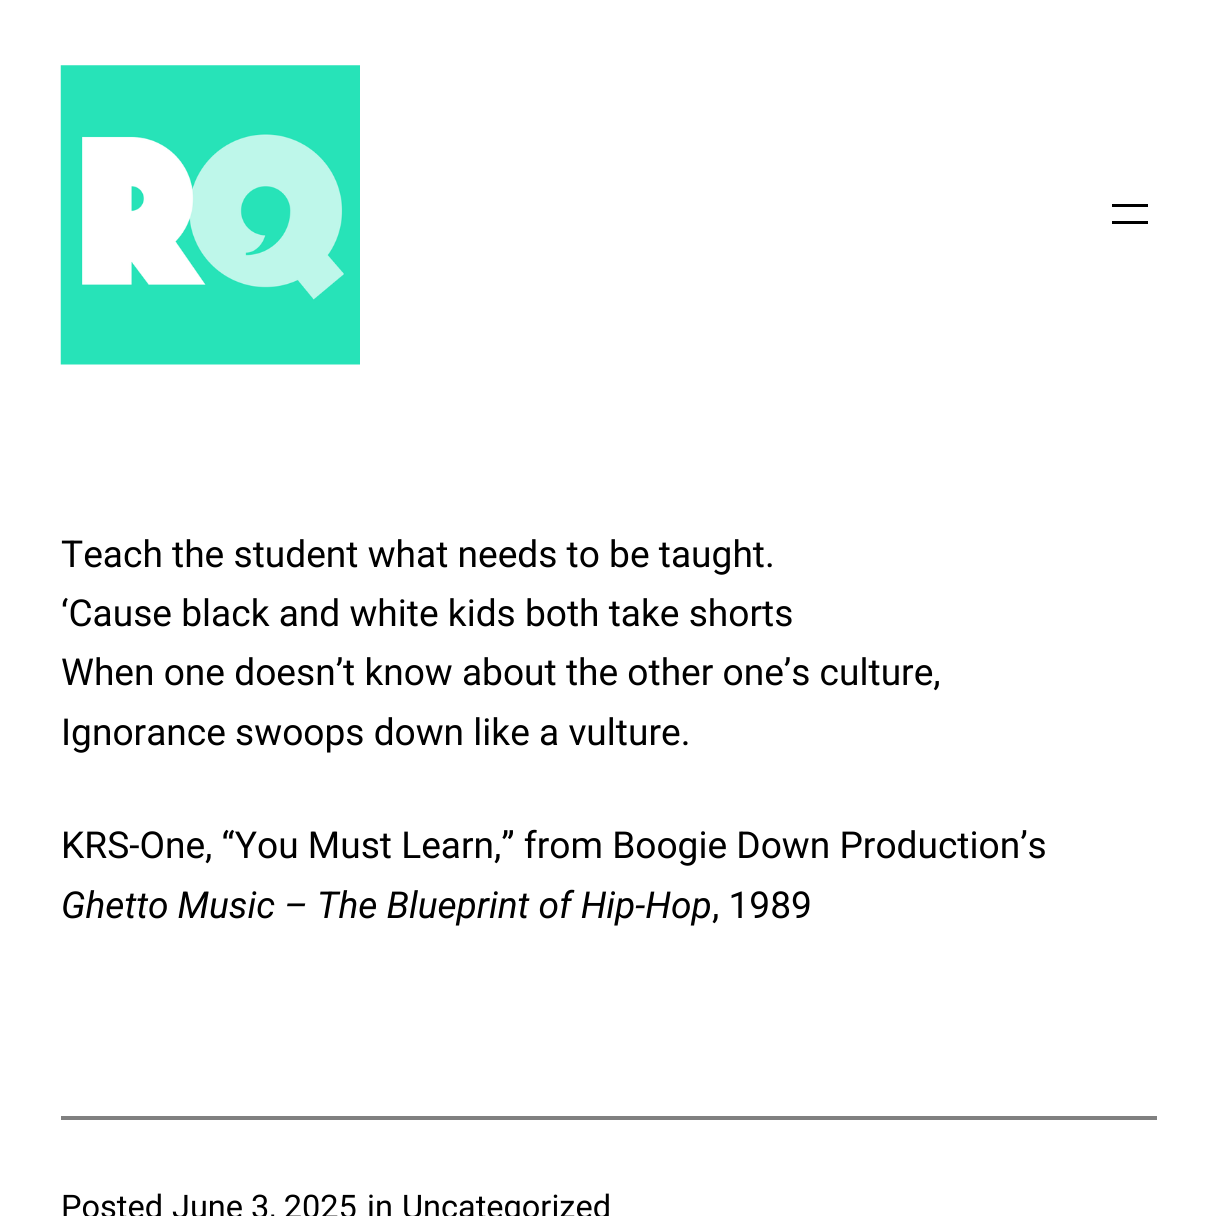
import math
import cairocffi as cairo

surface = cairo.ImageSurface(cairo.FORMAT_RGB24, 1216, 1216)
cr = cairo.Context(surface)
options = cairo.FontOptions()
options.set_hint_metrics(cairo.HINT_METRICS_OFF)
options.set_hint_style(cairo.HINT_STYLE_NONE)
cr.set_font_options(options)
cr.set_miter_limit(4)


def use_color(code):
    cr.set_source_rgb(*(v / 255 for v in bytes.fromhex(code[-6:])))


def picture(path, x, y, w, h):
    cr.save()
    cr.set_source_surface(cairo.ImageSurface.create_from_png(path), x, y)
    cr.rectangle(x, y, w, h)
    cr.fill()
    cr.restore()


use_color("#ffffff")
cr.paint()
picture("img1.png", 60, 65, 300, 300)
use_color("#000000")
cr.rectangle(1112, 204, 36, 3)
cr.fill()
cr.rectangle(1112, 221, 36, 3)
cr.fill()
cr.select_font_face("Roboto")
cr.set_font_size(37.1)
cr.move_to(61, 567)
cr.show_text("Teach the student what needs to be taught.")
cr.move_to(61, 626)
cr.show_text("‘Cause black and white kids both take shorts")
cr.move_to(61, 685)
cr.show_text("When one doesn’t know about the other one’s culture,")
cr.move_to(61, 745)
cr.show_text("Ignorance swoops down like a vulture.")
cr.move_to(61, 858)
cr.show_text("KRS-One, “You Must Learn,” from Boogie Down Production’s")
cr.select_font_face("Roboto", cairo.FONT_SLANT_ITALIC)
cr.move_to(61, 918)
cr.show_text("Ghetto Music – The Blueprint of Hip-Hop")
cr.select_font_face("Roboto")
cr.move_to(712, 918)
cr.show_text(", 1989")
use_color("#808080")
cr.rectangle(61, 1116, 1096, 4)
cr.fill()
cr.set_font_size(32.5)
use_color("#000000")
cr.move_to(61, 1218)
cr.show_text("Posted")
cr.move_to(172, 1218)
cr.show_text("June 3, 2025")
cr.move_to(367, 1218)
cr.show_text("in")
cr.move_to(402, 1218)
cr.show_text("Uncategorized")
surface.write_to_png("result.png")
